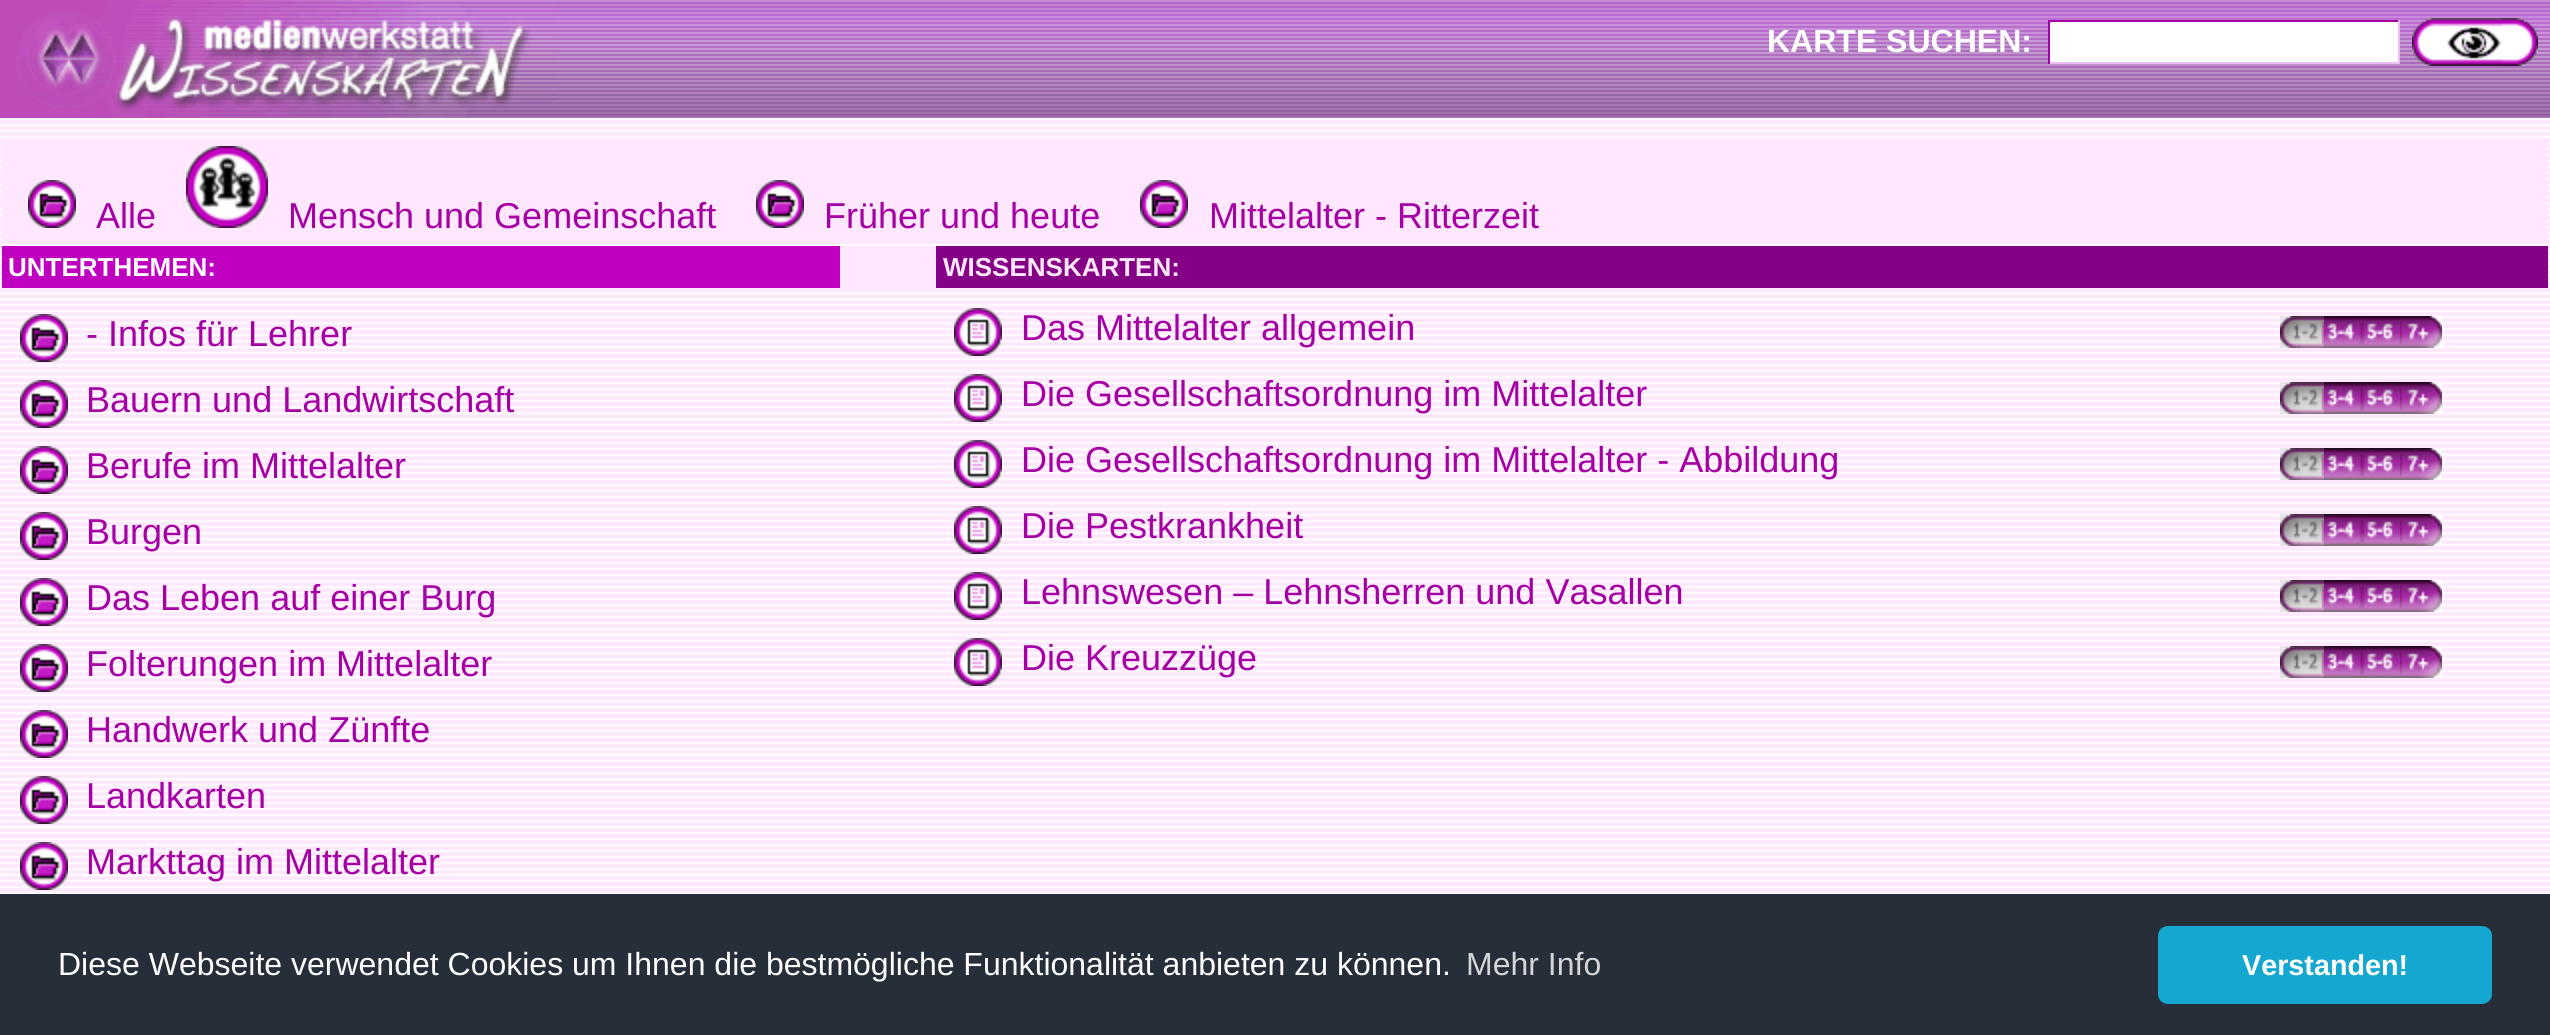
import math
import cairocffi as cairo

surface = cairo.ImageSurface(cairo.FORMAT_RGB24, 2550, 1035)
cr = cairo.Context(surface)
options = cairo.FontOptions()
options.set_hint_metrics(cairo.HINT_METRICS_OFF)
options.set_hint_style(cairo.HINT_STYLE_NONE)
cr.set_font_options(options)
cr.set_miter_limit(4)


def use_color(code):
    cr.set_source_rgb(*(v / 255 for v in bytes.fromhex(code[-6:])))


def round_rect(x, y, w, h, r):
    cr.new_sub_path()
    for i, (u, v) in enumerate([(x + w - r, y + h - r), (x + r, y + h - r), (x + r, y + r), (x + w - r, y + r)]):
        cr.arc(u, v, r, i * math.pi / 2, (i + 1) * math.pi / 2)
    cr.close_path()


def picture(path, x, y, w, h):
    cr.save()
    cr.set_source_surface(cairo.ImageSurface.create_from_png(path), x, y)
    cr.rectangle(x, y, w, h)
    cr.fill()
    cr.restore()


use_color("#ffffff")
cr.paint()
picture("img1.png", 0, 118, 2550, 776)
picture("img2.png", 556, 0, 1994, 118)
picture("img3.png", 0, 0, 556, 118)
cr.select_font_face("Liberation Sans", cairo.FONT_SLANT_NORMAL, cairo.FONT_WEIGHT_BOLD)
cr.set_font_size(32)
use_color("#ffffff")
cr.move_to(1767, 52)
cr.show_text("KARTE SUCHEN:")
cr.rectangle(2050, 22, 348, 40)
cr.fill()
use_color("#a400a4")
cr.rectangle(2048, 20, 352, 2)
cr.fill()
use_color("#ecbcf7")
cr.rectangle(2398, 20, 2, 44)
cr.fill()
cr.rectangle(2048, 62, 352, 2)
cr.fill()
use_color("#a400a4")
cr.rectangle(2048, 20, 2, 44)
cr.fill()
picture("img4.png", 2412, 18, 126, 48)
use_color("#ffe8ff")
cr.rectangle(2, 141, 2546, 103)
cr.fill()
picture("img5.png", 28, 180, 48, 48)
cr.select_font_face("Liberation Sans")
cr.set_font_size(36)
use_color("#a400a4")
cr.move_to(96, 228)
cr.show_text("Alle")
picture("img6.png", 186, 146, 82, 82)
cr.move_to(288, 228)
cr.show_text("Mensch und Gemeinschaft")
picture("img5.png", 756, 180, 48, 48)
cr.move_to(824, 228)
cr.show_text("Früher und heute")
picture("img5.png", 1140, 180, 48, 48)
cr.move_to(1209, 228)
cr.show_text("Mittelalter - Ritterzeit")
use_color("#ffe8ff")
cr.rectangle(840, 246, 96, 42)
cr.fill()
use_color("#c000c0")
cr.rectangle(2, 246, 838, 42)
cr.fill()
cr.select_font_face("Liberation Sans", cairo.FONT_SLANT_NORMAL, cairo.FONT_WEIGHT_BOLD)
cr.set_font_size(26)
use_color("#ffffff")
cr.move_to(8, 276)
cr.show_text("UNTERTHEMEN:")
use_color("#840084")
cr.rectangle(936, 246, 1612, 42)
cr.fill()
use_color("#ffe8ff")
cr.move_to(943, 276)
cr.show_text("WISSENSKARTEN:")
picture("img7.png", 20, 314, 48, 48)
cr.select_font_face("Liberation Sans")
cr.set_font_size(36)
use_color("#a400a4")
cr.move_to(86, 346)
cr.show_text("- Infos für Lehrer")
picture("img8.png", 20, 380, 48, 48)
cr.move_to(86, 412)
cr.show_text("Bauern und Landwirtschaft")
picture("img9.png", 20, 446, 48, 48)
cr.move_to(86, 478)
cr.show_text("Berufe im Mittelalter")
picture("img10.png", 20, 512, 48, 48)
cr.move_to(86, 544)
cr.show_text("Burgen")
picture("img11.png", 20, 578, 48, 48)
cr.move_to(86, 610)
cr.show_text("Das Leben auf einer Burg")
picture("img12.png", 20, 644, 48, 48)
cr.move_to(86, 676)
cr.show_text("Folterungen im Mittelalter")
picture("img13.png", 20, 710, 48, 48)
cr.move_to(86, 742)
cr.show_text("Handwerk und Zünfte")
picture("img14.png", 20, 776, 48, 48)
cr.move_to(86, 808)
cr.show_text("Landkarten")
picture("img15.png", 20, 842, 48, 48)
cr.move_to(86, 874)
cr.show_text("Markttag im Mittelalter")
picture("img16.png", 954, 308, 48, 48)
cr.move_to(1021, 340)
cr.show_text("Das Mittelalter allgemein")
use_color("#e6e6e6")
cr.rectangle(2280, 316, 9, 32)
cr.fill()
picture("img17.png", 2280, 316, 44, 32)
picture("img18.png", 2324, 316, 38, 32)
picture("img19.png", 2362, 316, 38, 32)
picture("img20.png", 2400, 316, 42, 32)
picture("img21.png", 954, 374, 48, 48)
use_color("#a400a4")
cr.move_to(1021, 406)
cr.show_text("Die Gesellschaftsordnung im Mittelalter")
use_color("#e6e6e6")
cr.rectangle(2280, 382, 9, 32)
cr.fill()
picture("img17.png", 2280, 382, 44, 32)
picture("img18.png", 2324, 382, 38, 32)
picture("img19.png", 2362, 382, 38, 32)
picture("img20.png", 2400, 382, 42, 32)
picture("img22.png", 954, 440, 48, 48)
use_color("#a400a4")
cr.move_to(1021, 472)
cr.show_text("Die Gesellschaftsordnung im Mittelalter - Abbildung")
use_color("#e6e6e6")
cr.rectangle(2280, 448, 9, 32)
cr.fill()
picture("img17.png", 2280, 448, 44, 32)
picture("img18.png", 2324, 448, 38, 32)
picture("img19.png", 2362, 448, 38, 32)
picture("img20.png", 2400, 448, 42, 32)
picture("img23.png", 954, 506, 48, 48)
use_color("#a400a4")
cr.move_to(1021, 538)
cr.show_text("Die Pestkrankheit")
use_color("#e6e6e6")
cr.rectangle(2280, 514, 9, 32)
cr.fill()
picture("img17.png", 2280, 514, 44, 32)
picture("img18.png", 2324, 514, 38, 32)
picture("img19.png", 2362, 514, 38, 32)
picture("img20.png", 2400, 514, 42, 32)
picture("img24.png", 954, 572, 48, 48)
use_color("#a400a4")
cr.move_to(1021, 604)
cr.show_text("Lehnswesen – Lehnsherren und Vasallen")
use_color("#e6e6e6")
cr.rectangle(2280, 580, 9, 32)
cr.fill()
picture("img17.png", 2280, 580, 44, 32)
picture("img18.png", 2324, 580, 38, 32)
picture("img19.png", 2362, 580, 38, 32)
picture("img20.png", 2400, 580, 42, 32)
picture("img25.png", 954, 638, 48, 48)
use_color("#a400a4")
cr.move_to(1021, 670)
cr.show_text("Die Kreuzzüge")
use_color("#e6e6e6")
cr.rectangle(2280, 646, 9, 32)
cr.fill()
picture("img17.png", 2280, 646, 44, 32)
picture("img18.png", 2324, 646, 38, 32)
picture("img19.png", 2362, 646, 38, 32)
picture("img20.png", 2400, 646, 42, 32)
use_color("#252e39")
cr.rectangle(0, 894, 2550, 141)
cr.fill()
cr.set_font_size(32)
use_color("#ffffff")
cr.move_to(58, 975)
cr.show_text("Diese Webseite verwendet Cookies um Ihnen die bestmögliche Funktionalität anbieten zu können.")
use_color("#d3d5d7")
cr.move_to(1466, 975)
cr.show_text("Mehr Info")
use_color("#14a7d0")
round_rect(2158, 926, 334, 78, 10)
cr.fill()
cr.select_font_face("Liberation Sans", cairo.FONT_SLANT_NORMAL, cairo.FONT_WEIGHT_BOLD)
cr.set_font_size(28.75)
use_color("#ffffff")
cr.move_to(2242, 975)
cr.show_text("Verstanden!")
surface.write_to_png("result.png")
